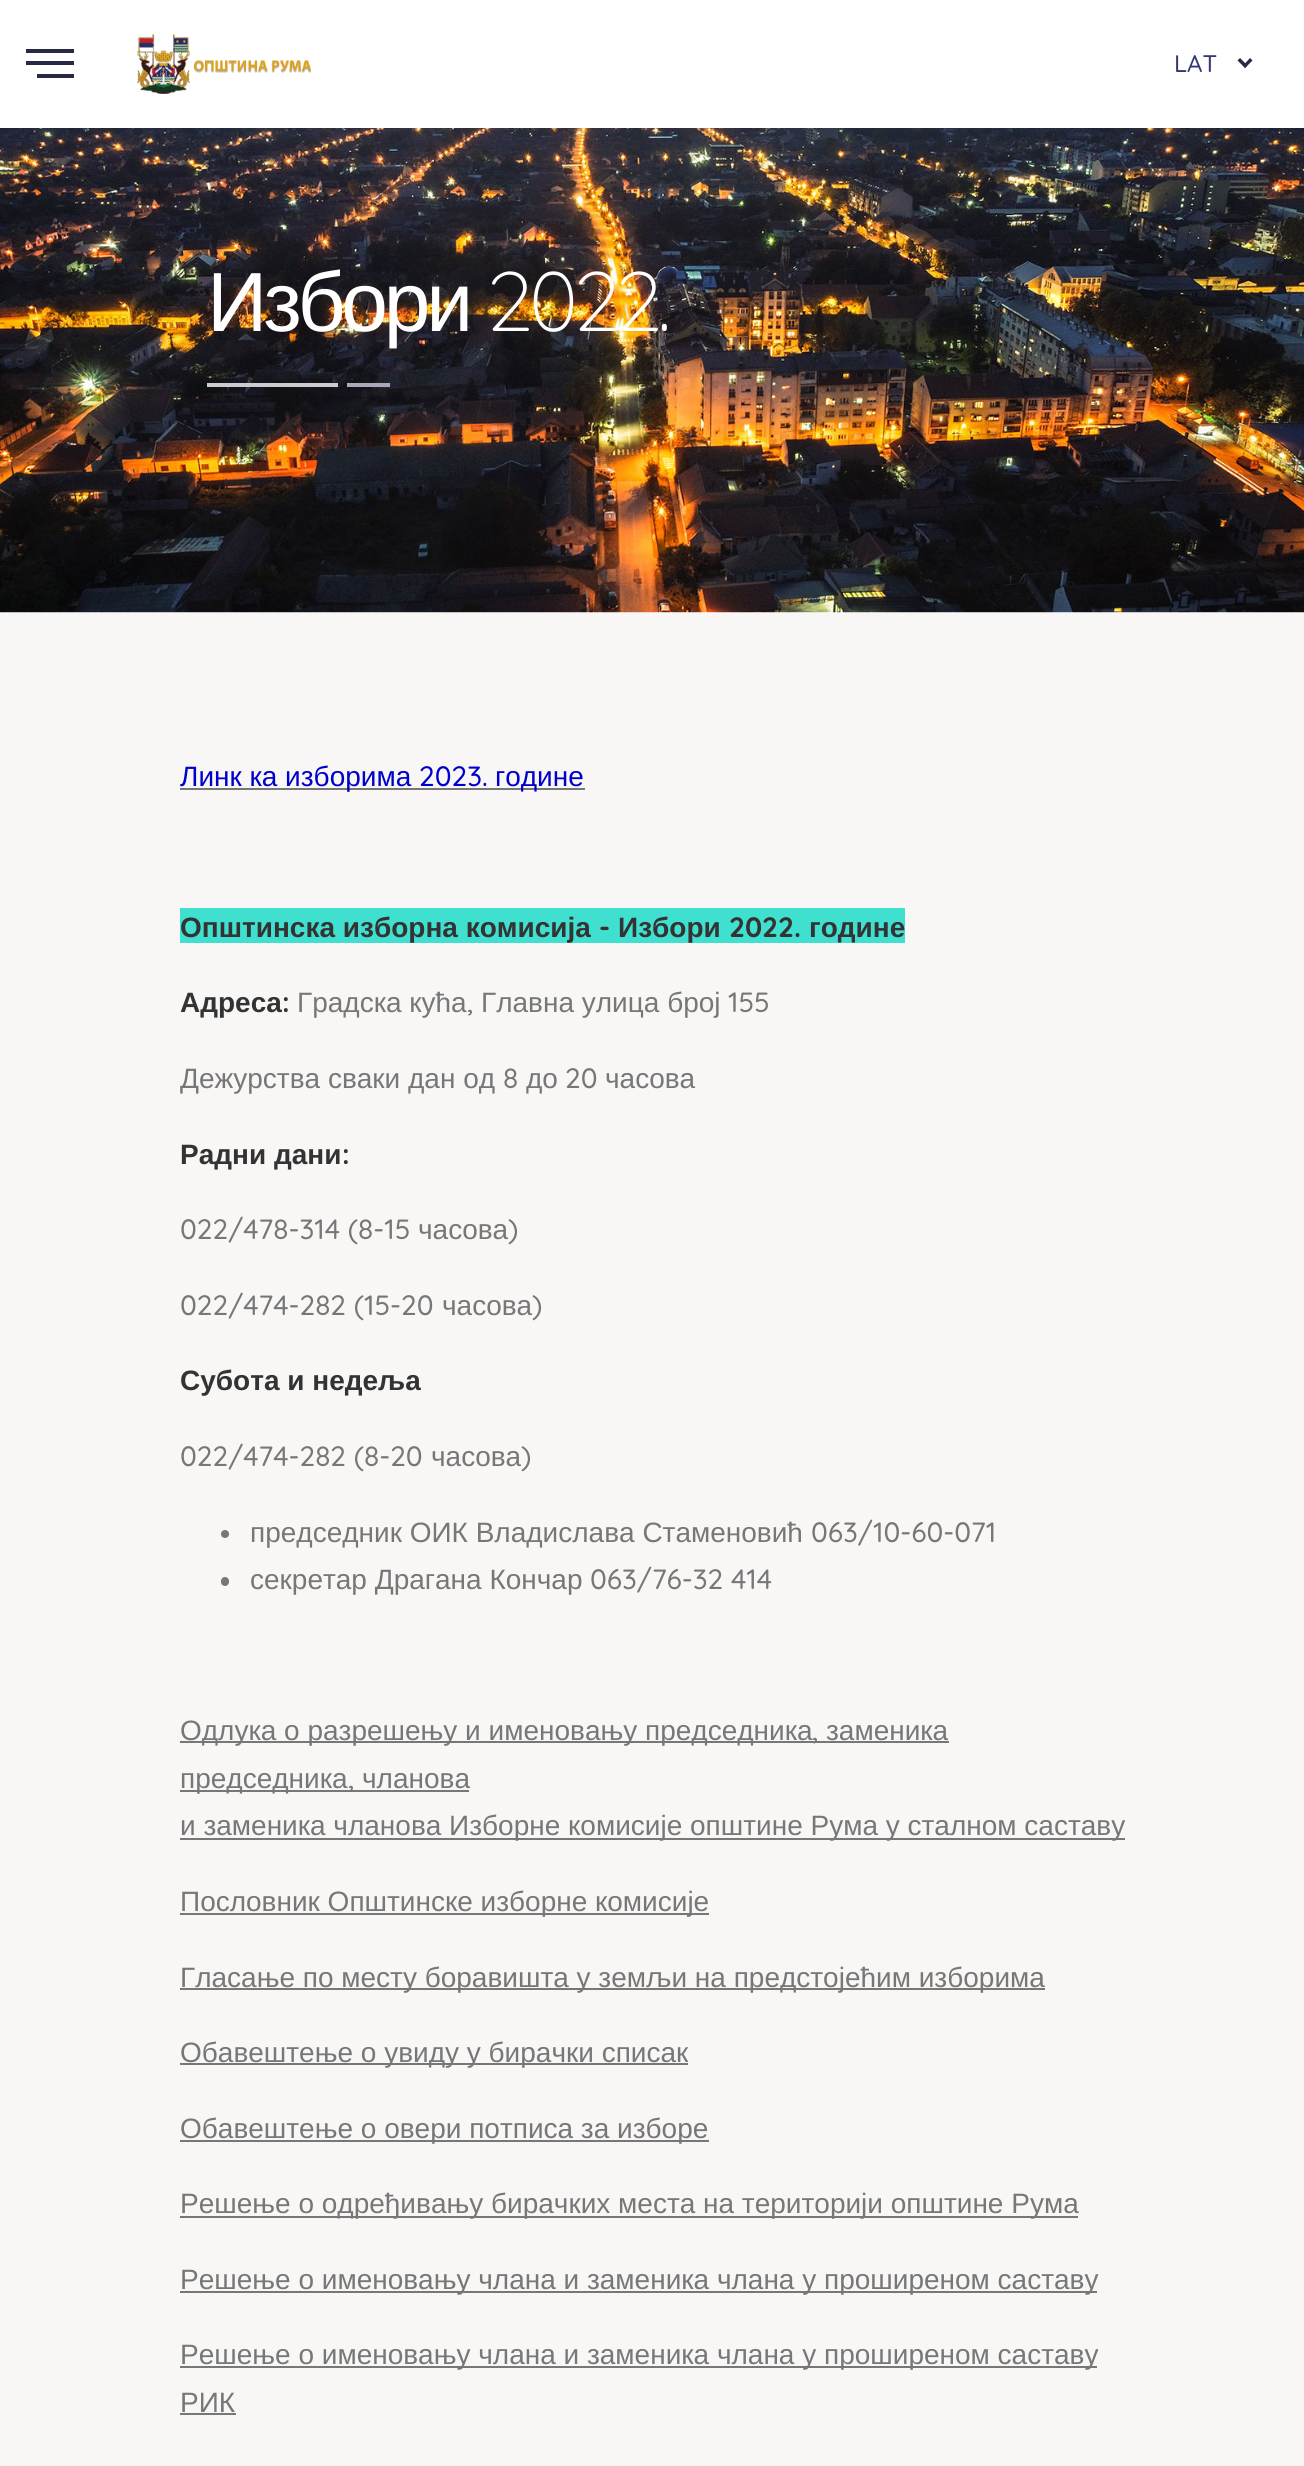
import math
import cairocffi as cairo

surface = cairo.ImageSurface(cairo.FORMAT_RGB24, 1304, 2466)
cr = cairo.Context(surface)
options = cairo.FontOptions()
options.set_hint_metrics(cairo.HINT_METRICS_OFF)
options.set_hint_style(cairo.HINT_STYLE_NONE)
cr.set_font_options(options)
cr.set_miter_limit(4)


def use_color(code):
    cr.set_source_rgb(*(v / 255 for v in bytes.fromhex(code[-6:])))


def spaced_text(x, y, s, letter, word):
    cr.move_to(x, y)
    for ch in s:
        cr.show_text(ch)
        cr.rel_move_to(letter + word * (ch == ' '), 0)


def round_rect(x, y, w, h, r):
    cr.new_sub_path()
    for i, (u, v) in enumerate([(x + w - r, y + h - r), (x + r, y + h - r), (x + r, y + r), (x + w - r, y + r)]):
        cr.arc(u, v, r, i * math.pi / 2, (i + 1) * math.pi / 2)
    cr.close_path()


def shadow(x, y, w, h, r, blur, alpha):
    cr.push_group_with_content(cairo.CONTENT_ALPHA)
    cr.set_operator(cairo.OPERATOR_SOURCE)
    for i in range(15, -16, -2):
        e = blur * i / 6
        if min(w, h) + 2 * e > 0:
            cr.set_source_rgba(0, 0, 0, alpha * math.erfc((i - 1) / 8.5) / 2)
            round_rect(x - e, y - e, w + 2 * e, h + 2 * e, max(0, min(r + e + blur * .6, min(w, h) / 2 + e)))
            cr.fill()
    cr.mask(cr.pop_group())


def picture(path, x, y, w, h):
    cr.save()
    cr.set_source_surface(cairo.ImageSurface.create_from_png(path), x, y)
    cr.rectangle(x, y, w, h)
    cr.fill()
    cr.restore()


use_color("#ffffff")
cr.paint()
picture("img2.png", 0, 128, 1304, 485)
use_color("#000000")
shadow(-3, 2, 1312, 135, 0, 9, 0.04)
use_color("#ffffff")
cr.rectangle(0, 0, 1304, 128)
cr.fill()
use_color("#282a43")
cr.rectangle(26, 49, 48, 4)
cr.fill()
cr.rectangle(26, 61, 48, 4)
cr.fill()
cr.rectangle(37, 74, 37, 4)
cr.fill()
picture("img1.png", 137, 34, 175, 60)
cr.select_font_face("Quicksand Medium")
cr.set_font_size(24)
use_color("#343877")
cr.move_to(1174, 72)
cr.show_text("LAT")
use_color("#282a43")
cr.new_path()
cr.move_to(1240, 58)
cr.line_to(1247.5, 65.5)
cr.line_to(1245, 68)
cr.line_to(1237.5, 60.5)
cr.close_path()
cr.fill()
cr.new_path()
cr.move_to(1243, 65.5)
cr.line_to(1250, 58)
cr.line_to(1252.5, 60.5)
cr.line_to(1245, 68)
cr.close_path()
cr.fill()
cr.select_font_face("Liberation Sans")
cr.set_font_size(84)
use_color("#ffffff")
spaced_text(207, 331, "Избори", -4.25, 0)
cr.select_font_face("Quicksand Light")
spaced_text(487, 331, "2022.", -4.25, 0)
use_color("#cccccc")
cr.rectangle(207, 383, 131, 4)
cr.fill()
use_color("#aca7ba")
cr.rectangle(347, 383, 43, 4)
cr.fill()
use_color("#f9f7f6")
cr.rectangle(0, 613, 1304, 1853)
cr.fill()
use_color("#777777")
cr.rectangle(180, 788, 405, 2)
cr.fill()
cr.select_font_face("Liberation Sans")
cr.set_font_size(28)
use_color("#0000cd")
cr.move_to(180, 786)
cr.show_text("Линк ка изборима")
cr.select_font_face("Quicksand Medium")
cr.move_to(419, 786)
cr.show_text("2023.")
cr.select_font_face("Liberation Sans")
cr.move_to(495, 786)
cr.show_text("године")
use_color("#40e0d0")
cr.rectangle(180, 908, 725, 35)
cr.fill()
cr.select_font_face("Liberation Sans", cairo.FONT_SLANT_NORMAL, cairo.FONT_WEIGHT_BOLD)
use_color("#333333")
cr.move_to(180, 937)
cr.show_text("Општинска изборна комисија")
cr.select_font_face("Quicksand", cairo.FONT_SLANT_NORMAL, cairo.FONT_WEIGHT_BOLD)
cr.move_to(599, 937)
cr.show_text("-")
cr.select_font_face("Liberation Sans", cairo.FONT_SLANT_NORMAL, cairo.FONT_WEIGHT_BOLD)
cr.move_to(618, 937)
cr.show_text("Избори")
cr.select_font_face("Quicksand", cairo.FONT_SLANT_NORMAL, cairo.FONT_WEIGHT_BOLD)
cr.move_to(729, 937)
cr.show_text("2022.")
cr.select_font_face("Liberation Sans", cairo.FONT_SLANT_NORMAL, cairo.FONT_WEIGHT_BOLD)
cr.move_to(809, 937)
cr.show_text("године")
cr.move_to(180, 1012)
cr.show_text("Адреса")
cr.select_font_face("Quicksand", cairo.FONT_SLANT_NORMAL, cairo.FONT_WEIGHT_BOLD)
cr.move_to(282, 1012)
cr.show_text(":")
cr.select_font_face("Liberation Sans")
use_color("#777777")
cr.move_to(297, 1012)
cr.show_text("Градска кућа")
cr.select_font_face("Quicksand Medium")
cr.move_to(467, 1012)
cr.show_text(",")
cr.select_font_face("Liberation Sans")
cr.move_to(481, 1012)
cr.show_text("Главна улица број")
cr.select_font_face("Quicksand Medium")
cr.move_to(728, 1012)
cr.show_text("155")
cr.select_font_face("Liberation Sans")
cr.move_to(180, 1088)
cr.show_text("Дежурства сваки дан од")
cr.select_font_face("Quicksand Medium")
cr.move_to(503, 1088)
cr.show_text("8")
cr.select_font_face("Liberation Sans")
cr.move_to(526, 1088)
cr.show_text("до")
cr.select_font_face("Quicksand Medium")
cr.move_to(565, 1088)
cr.show_text("20")
cr.select_font_face("Liberation Sans")
cr.move_to(605, 1088)
cr.show_text("часова")
cr.select_font_face("Liberation Sans", cairo.FONT_SLANT_NORMAL, cairo.FONT_WEIGHT_BOLD)
use_color("#333333")
cr.move_to(180, 1164)
cr.show_text("Радни дани")
cr.select_font_face("Quicksand", cairo.FONT_SLANT_NORMAL, cairo.FONT_WEIGHT_BOLD)
cr.move_to(342, 1164)
cr.show_text(":")
cr.select_font_face("Quicksand Medium")
use_color("#777777")
cr.move_to(180, 1239)
cr.show_text("022/478-314 (8-15")
cr.select_font_face("Liberation Sans")
cr.move_to(418, 1239)
cr.show_text("часова")
cr.select_font_face("Quicksand Medium")
cr.move_to(508, 1239)
cr.show_text(")")
cr.move_to(180, 1315)
cr.show_text("022/474-282 (15-20")
cr.select_font_face("Liberation Sans")
cr.move_to(442, 1315)
cr.show_text("часова")
cr.select_font_face("Quicksand Medium")
cr.move_to(532, 1315)
cr.show_text(")")
cr.select_font_face("Liberation Sans", cairo.FONT_SLANT_NORMAL, cairo.FONT_WEIGHT_BOLD)
use_color("#333333")
cr.move_to(180, 1390)
cr.show_text("Субота и недеља")
cr.select_font_face("Quicksand Medium")
use_color("#777777")
cr.move_to(180, 1466)
cr.show_text("022/474-282 (8-20")
cr.select_font_face("Liberation Sans")
cr.move_to(431, 1466)
cr.show_text("часова")
cr.select_font_face("Quicksand Medium")
cr.move_to(521, 1466)
cr.show_text(")")
cr.new_path()
cr.arc(225, 1534, 4, 0, 2 * math.pi)
cr.fill()
cr.select_font_face("Liberation Sans")
cr.move_to(250, 1542)
cr.show_text("председник ОИК Владислава Стаменовић")
cr.select_font_face("Quicksand Medium")
cr.move_to(811, 1542)
cr.show_text("063/10-60-071")
round_rect(221, 1577, 8, 9, 4)
cr.fill()
cr.select_font_face("Liberation Sans")
cr.move_to(250, 1589)
cr.show_text("секретар Драгана Кончар")
cr.select_font_face("Quicksand Medium")
cr.move_to(590, 1589)
cr.show_text("063/76-32 414")
cr.rectangle(180, 1741, 769, 2)
cr.fill()
cr.select_font_face("Liberation Sans")
cr.move_to(180, 1740)
cr.show_text("Одлука о разрешењу и именовању председника")
cr.select_font_face("Quicksand Medium")
cr.move_to(812, 1740)
cr.show_text(",")
cr.select_font_face("Liberation Sans")
cr.move_to(826, 1740)
cr.show_text("заменика")
cr.rectangle(180, 1790, 289, 2)
cr.fill()
cr.move_to(180, 1788)
cr.show_text("председника")
cr.select_font_face("Quicksand Medium")
cr.move_to(348, 1788)
cr.show_text(",")
cr.select_font_face("Liberation Sans")
cr.move_to(362, 1788)
cr.show_text("чланова")
cr.rectangle(180, 1838, 945, 2)
cr.fill()
cr.move_to(180, 1835)
cr.show_text("и заменика чланова Изборне комисије општине Рума у сталном саставу")
cr.rectangle(180, 1913, 529, 2)
cr.fill()
cr.move_to(180, 1911)
cr.show_text("Пословник Општинске изборне комисије")
cr.rectangle(180, 1988, 865, 2)
cr.fill()
cr.move_to(180, 1987)
cr.show_text("Гласање по месту боравишта у земљи на предстојећим изборима")
cr.rectangle(180, 2063, 508, 2)
cr.fill()
cr.move_to(180, 2062)
cr.show_text("Обавештење о увиду у бирачки списак")
cr.rectangle(180, 2140, 529, 2)
cr.fill()
cr.move_to(180, 2138)
cr.show_text("Обавештење о овери потписа за изборе")
cr.rectangle(180, 2216, 898, 2)
cr.fill()
cr.move_to(180, 2213)
cr.show_text("Решење о одређивању бирачких места на територији општине Рума")
cr.rectangle(180, 2291, 917, 2)
cr.fill()
cr.move_to(180, 2289)
cr.show_text("Решење о именовању члана и заменика члана у проширеном саставу")
cr.rectangle(180, 2366, 917, 2)
cr.fill()
cr.move_to(180, 2364)
cr.show_text("Решење о именовању члана и заменика члана у проширеном саставу")
cr.move_to(180, 2412)
cr.show_text("РИК")
cr.rectangle(180, 2413, 56, 2)
cr.fill()
surface.write_to_png("result.png")
